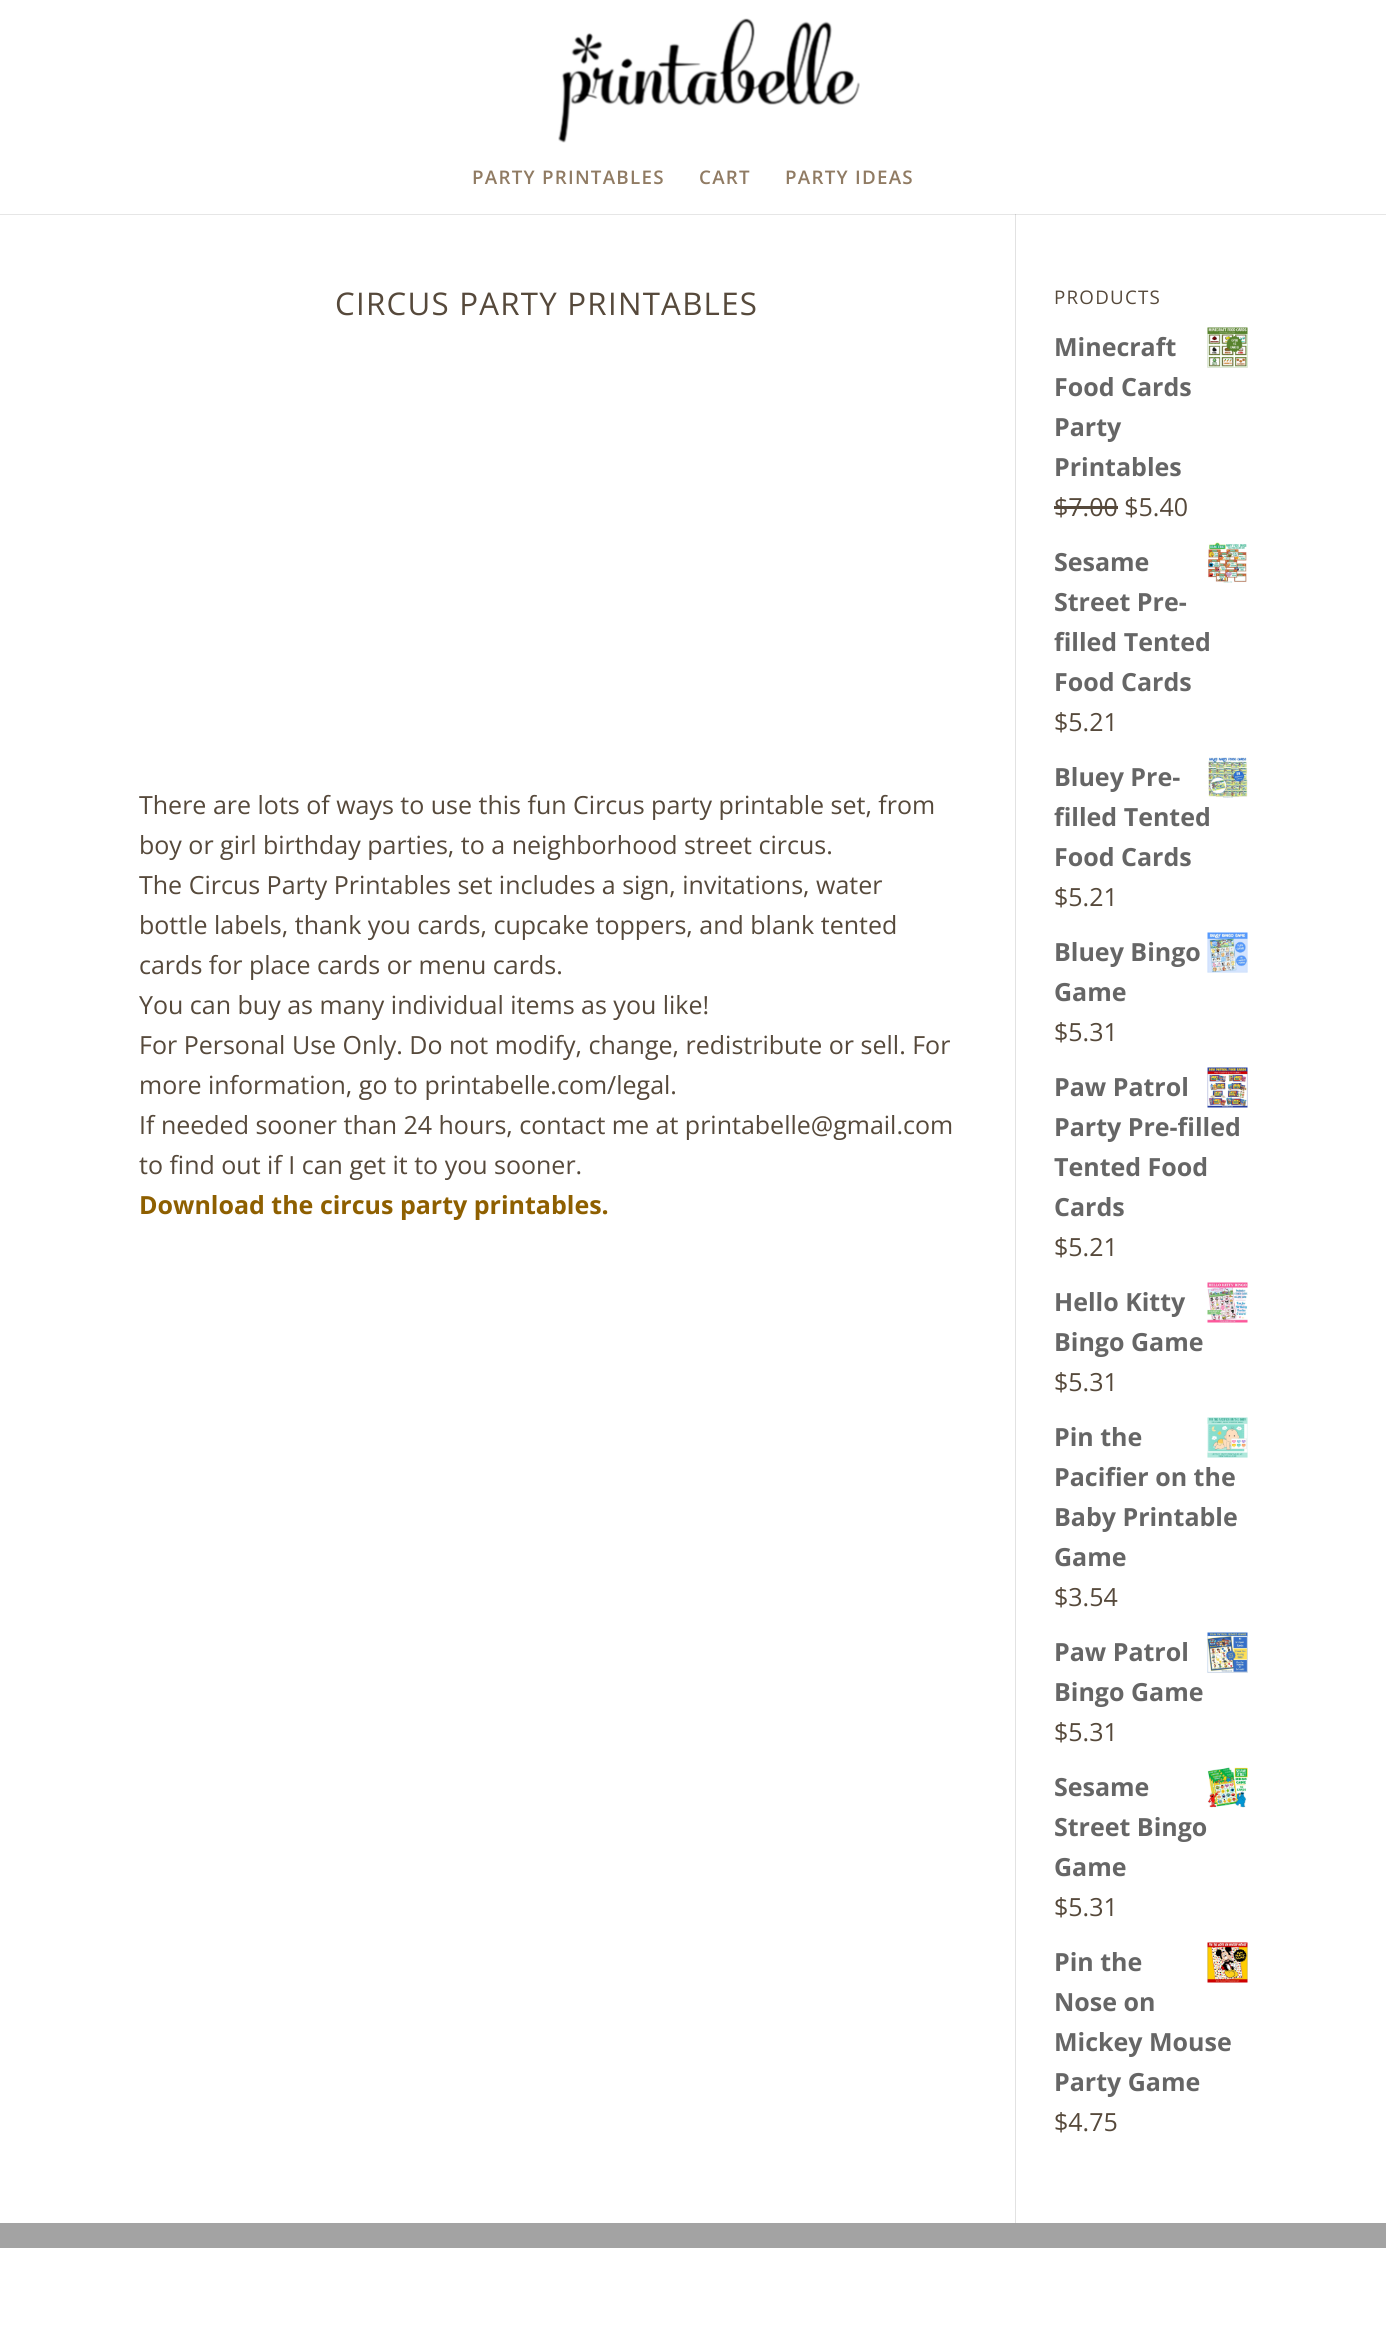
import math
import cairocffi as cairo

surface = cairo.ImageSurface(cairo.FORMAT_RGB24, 1386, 2326)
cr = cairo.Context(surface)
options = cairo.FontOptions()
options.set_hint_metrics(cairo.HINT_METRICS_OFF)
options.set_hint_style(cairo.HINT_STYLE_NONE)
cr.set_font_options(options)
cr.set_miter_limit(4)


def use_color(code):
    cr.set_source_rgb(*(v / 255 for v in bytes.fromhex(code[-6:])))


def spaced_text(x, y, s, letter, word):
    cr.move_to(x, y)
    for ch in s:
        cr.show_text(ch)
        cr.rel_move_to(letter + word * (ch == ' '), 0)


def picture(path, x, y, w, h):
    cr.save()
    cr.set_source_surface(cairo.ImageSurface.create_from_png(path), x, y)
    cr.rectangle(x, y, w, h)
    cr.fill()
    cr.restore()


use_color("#ffffff")
cr.paint()
use_color("#e6e6e6")
cr.rectangle(0, 214, 1386, 1)
cr.fill()
picture("img1.png", 558, 18, 302, 125)
cr.select_font_face("Open Sans SemiBold")
cr.set_font_size(18.75)
use_color("#907b63")
spaced_text(472, 184, "PARTY PRINTABLES", 1.25, 0)
spaced_text(699, 184, "CART", 1.25, 0)
spaced_text(785, 184, "PARTY IDEAS", 1.25, 0)
use_color("#e2e2e2")
cr.rectangle(1015, 214, 1, 2009)
cr.fill()
use_color("#cbcbcb")
cr.rectangle(1015, 214, 1, 1)
cr.fill()
cr.select_font_face("Open Sans")
cr.set_font_size(31.25)
use_color("#56493b")
spaced_text(335, 315, "CIRCUS PARTY PRINTABLES", 1.25, 0)
cr.set_font_size(25)
cr.move_to(139, 814)
cr.show_text("There are lots of ways to use this fun Circus party printable set, from")
cr.move_to(139, 854)
cr.show_text("boy or girl birthday parties, to a neighborhood street circus.")
cr.move_to(139, 894)
cr.show_text("The Circus Party Printables set includes a sign, invitations, water")
cr.move_to(139, 934)
cr.show_text("bottle labels, thank you cards, cupcake toppers, and blank tented")
cr.move_to(139, 974)
cr.show_text("cards for place cards or menu cards.")
cr.move_to(139, 1014)
cr.show_text("You can buy as many individual items as you like!")
cr.move_to(139, 1054)
cr.show_text("For Personal Use Only. Do not modify, change, redistribute or sell. For")
cr.move_to(139, 1094)
cr.show_text("more information, go to printabelle.com/legal.")
cr.move_to(139, 1134)
cr.show_text("If needed sooner than 24 hours, contact me at printabelle@gmail.com")
cr.move_to(139, 1174)
cr.show_text("to find out if I can get it to you sooner.")
cr.select_font_face("Open Sans", cairo.FONT_SLANT_NORMAL, cairo.FONT_WEIGHT_BOLD)
use_color("#8e5f00")
cr.move_to(139, 1214)
cr.show_text("Download the circus party printables.")
cr.select_font_face("Open Sans")
cr.set_font_size(18.75)
use_color("#56493b")
spaced_text(1054, 304, "PRODUCTS", 1.25, 0)
cr.select_font_face("Open Sans", cairo.FONT_SLANT_NORMAL, cairo.FONT_WEIGHT_BOLD)
cr.set_font_size(25)
use_color("#666666")
cr.move_to(1054, 356)
cr.show_text("Minecraft")
picture("img2.png", 1207, 327, 41, 41)
cr.move_to(1054, 396)
cr.show_text("Food Cards")
cr.move_to(1054, 436)
cr.show_text("Party")
cr.move_to(1054, 476)
cr.show_text("Printables")
cr.select_font_face("Open Sans")
use_color("#56493b")
cr.move_to(1054, 516)
cr.show_text("$7.00 $5.40")
cr.rectangle(1054, 506, 64, 3)
cr.fill()
cr.select_font_face("Open Sans", cairo.FONT_SLANT_NORMAL, cairo.FONT_WEIGHT_BOLD)
use_color("#666666")
cr.move_to(1054, 571)
cr.show_text("Sesame")
picture("img3.png", 1208, 542, 39, 41)
cr.move_to(1054, 611)
cr.show_text("Street Pre-")
cr.move_to(1054, 651)
cr.show_text("filled Tented")
cr.move_to(1054, 691)
cr.show_text("Food Cards")
cr.select_font_face("Open Sans")
use_color("#56493b")
cr.move_to(1054, 731)
cr.show_text("$5.21")
cr.select_font_face("Open Sans", cairo.FONT_SLANT_NORMAL, cairo.FONT_WEIGHT_BOLD)
use_color("#666666")
cr.move_to(1054, 786)
cr.show_text("Bluey Pre-")
picture("img4.png", 1208, 757, 40, 41)
cr.move_to(1054, 826)
cr.show_text("filled Tented")
cr.move_to(1054, 866)
cr.show_text("Food Cards")
cr.select_font_face("Open Sans")
use_color("#56493b")
cr.move_to(1054, 906)
cr.show_text("$5.21")
cr.select_font_face("Open Sans", cairo.FONT_SLANT_NORMAL, cairo.FONT_WEIGHT_BOLD)
use_color("#666666")
cr.move_to(1054, 961)
cr.show_text("Bluey Bingo")
picture("img5.png", 1207, 932, 41, 41)
cr.move_to(1054, 1001)
cr.show_text("Game")
cr.select_font_face("Open Sans")
use_color("#56493b")
cr.move_to(1054, 1041)
cr.show_text("$5.31")
cr.select_font_face("Open Sans", cairo.FONT_SLANT_NORMAL, cairo.FONT_WEIGHT_BOLD)
use_color("#666666")
cr.move_to(1054, 1096)
cr.show_text("Paw Patrol")
picture("img6.png", 1207, 1067, 41, 41)
cr.move_to(1054, 1136)
cr.show_text("Party Pre-filled")
cr.move_to(1054, 1176)
cr.show_text("Tented Food")
cr.move_to(1054, 1216)
cr.show_text("Cards")
cr.select_font_face("Open Sans")
use_color("#56493b")
cr.move_to(1054, 1256)
cr.show_text("$5.21")
cr.select_font_face("Open Sans", cairo.FONT_SLANT_NORMAL, cairo.FONT_WEIGHT_BOLD)
use_color("#666666")
cr.move_to(1054, 1311)
cr.show_text("Hello Kitty")
picture("img7.png", 1207, 1282, 41, 41)
cr.move_to(1054, 1351)
cr.show_text("Bingo Game")
cr.select_font_face("Open Sans")
use_color("#56493b")
cr.move_to(1054, 1391)
cr.show_text("$5.31")
cr.select_font_face("Open Sans", cairo.FONT_SLANT_NORMAL, cairo.FONT_WEIGHT_BOLD)
use_color("#666666")
cr.move_to(1054, 1446)
cr.show_text("Pin the")
picture("img8.png", 1207, 1417, 41, 41)
cr.move_to(1054, 1486)
cr.show_text("Pacifier on the")
cr.move_to(1054, 1526)
cr.show_text("Baby Printable")
cr.move_to(1054, 1566)
cr.show_text("Game")
cr.select_font_face("Open Sans")
use_color("#56493b")
cr.move_to(1054, 1606)
cr.show_text("$3.54")
cr.select_font_face("Open Sans", cairo.FONT_SLANT_NORMAL, cairo.FONT_WEIGHT_BOLD)
use_color("#666666")
cr.move_to(1054, 1661)
cr.show_text("Paw Patrol")
picture("img9.png", 1207, 1632, 41, 41)
cr.move_to(1054, 1701)
cr.show_text("Bingo Game")
cr.select_font_face("Open Sans")
use_color("#56493b")
cr.move_to(1054, 1741)
cr.show_text("$5.31")
cr.select_font_face("Open Sans", cairo.FONT_SLANT_NORMAL, cairo.FONT_WEIGHT_BOLD)
use_color("#666666")
cr.move_to(1054, 1796)
cr.show_text("Sesame")
picture("img10.png", 1207, 1767, 41, 41)
cr.move_to(1054, 1836)
cr.show_text("Street Bingo")
cr.move_to(1054, 1876)
cr.show_text("Game")
cr.select_font_face("Open Sans")
use_color("#56493b")
cr.move_to(1054, 1916)
cr.show_text("$5.31")
cr.select_font_face("Open Sans", cairo.FONT_SLANT_NORMAL, cairo.FONT_WEIGHT_BOLD)
use_color("#666666")
cr.move_to(1054, 1971)
cr.show_text("Pin the")
picture("img11.png", 1207, 1942, 41, 41)
cr.move_to(1054, 2011)
cr.show_text("Nose on")
cr.move_to(1054, 2051)
cr.show_text("Mickey Mouse")
cr.move_to(1054, 2091)
cr.show_text("Party Game")
cr.select_font_face("Open Sans")
use_color("#56493b")
cr.move_to(1054, 2131)
cr.show_text("$4.75")
use_color("#a3a3a3")
cr.rectangle(0, 2223, 1386, 25)
cr.fill()
surface.write_to_png("result.png")
